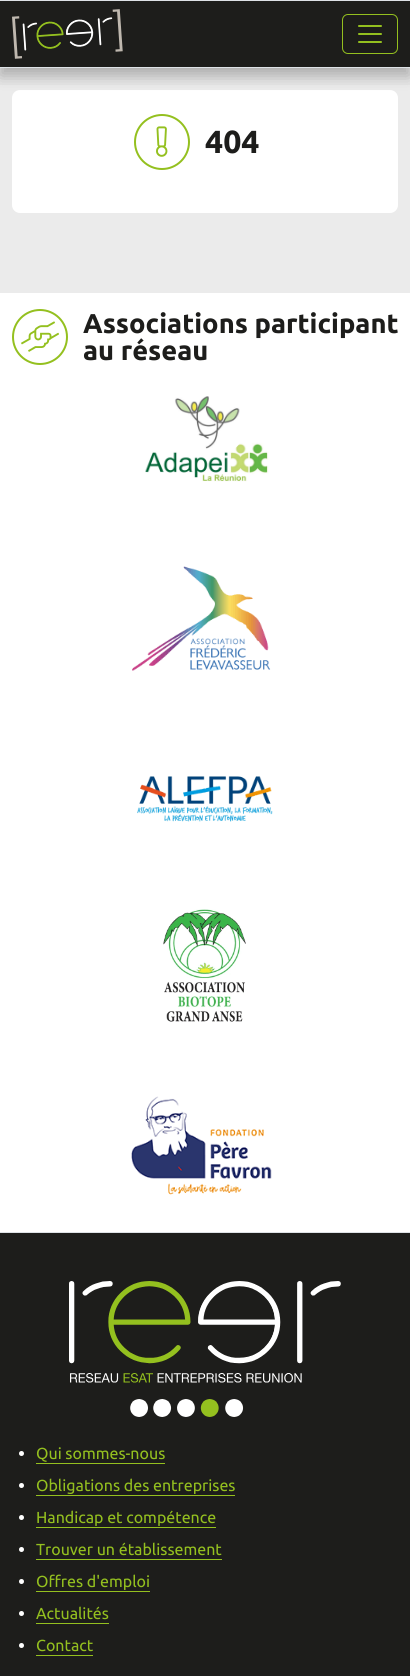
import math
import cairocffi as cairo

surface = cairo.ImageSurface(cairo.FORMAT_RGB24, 410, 1676)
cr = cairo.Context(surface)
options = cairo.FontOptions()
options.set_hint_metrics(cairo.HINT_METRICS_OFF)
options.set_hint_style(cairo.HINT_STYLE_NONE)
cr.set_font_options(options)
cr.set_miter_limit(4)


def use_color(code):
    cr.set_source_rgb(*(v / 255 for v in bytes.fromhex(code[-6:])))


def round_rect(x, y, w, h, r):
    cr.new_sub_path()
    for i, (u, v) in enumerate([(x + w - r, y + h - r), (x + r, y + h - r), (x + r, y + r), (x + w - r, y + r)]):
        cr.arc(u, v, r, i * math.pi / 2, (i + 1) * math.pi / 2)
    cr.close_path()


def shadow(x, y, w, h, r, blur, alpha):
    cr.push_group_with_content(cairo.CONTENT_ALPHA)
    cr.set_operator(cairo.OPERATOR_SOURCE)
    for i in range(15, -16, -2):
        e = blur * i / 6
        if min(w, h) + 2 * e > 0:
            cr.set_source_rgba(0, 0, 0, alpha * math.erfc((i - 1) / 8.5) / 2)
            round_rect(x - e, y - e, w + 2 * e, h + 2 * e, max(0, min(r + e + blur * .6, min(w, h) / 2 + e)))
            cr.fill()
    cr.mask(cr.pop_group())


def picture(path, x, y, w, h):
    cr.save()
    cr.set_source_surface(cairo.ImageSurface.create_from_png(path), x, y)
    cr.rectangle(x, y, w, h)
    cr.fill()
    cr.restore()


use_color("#ebebeb")
cr.paint()
use_color("#ffffff")
round_rect(12, 90, 386, 123, 8)
cr.fill()
use_color("#000000")
shadow(0, 8, 410, 68, 0, 8, 0.15)
use_color("#1d1d1b")
cr.rectangle(0, 1, 410, 66)
cr.fill()
cr.save()
cr.rectangle(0, 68, 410, 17)
cr.clip()
use_color("#000000")
shadow(0, 8, 410, 68, 0, 8, 0.15)
cr.restore()
use_color("#dee2e6")
cr.rectangle(0, 0, 410, 1)
cr.fill()
cr.rectangle(0, 67, 410, 1)
cr.fill()
picture("img1.png", 12, 9, 111, 50)
round_rect(342.5, 14.5, 55, 39, 5.5)
use_color("#94c01f")
cr.set_line_width(1)
cr.stroke()
picture("img2.png", 358, 25, 24, 18)
cr.arc(162, 142, 27, 0, 2 * math.pi)
cr.set_line_width(2)
cr.stroke()
picture("img3.png", 156, 126, 12, 31)
cr.select_font_face("Ubuntu", cairo.FONT_SLANT_NORMAL, cairo.FONT_WEIGHT_BOLD)
cr.set_font_size(32)
use_color("#1d1d1b")
cr.move_to(205, 153)
cr.show_text("404")
use_color("#ffffff")
cr.rectangle(0, 293, 410, 939)
cr.fill()
cr.arc(40, 337, 27, 0, 2 * math.pi)
use_color("#94c01f")
cr.stroke()
picture("img4.png", 21, 321, 38, 31)
cr.set_font_size(27.25)
use_color("#1d1d1b")
cr.move_to(83, 333)
cr.show_text("Associations participant")
cr.move_to(83, 360)
cr.show_text("au réseau")
picture("img5.png", 145, 396, 124, 86)
picture("img6.png", 132, 566, 139, 105)
picture("img7.png", 137, 776, 136, 46)
picture("img8.png", 163, 909, 83, 113)
picture("img9.png", 131, 1096, 141, 99)
cr.rectangle(0, 1233, 410, 443)
cr.fill()
use_color("#dee2e6")
cr.rectangle(0, 1232, 410, 1)
cr.fill()
picture("img10.png", 69, 1281, 272, 136)
use_color("#ffffff")
cr.arc(21.5, 1453.5, 2.5, 0, 2 * math.pi)
cr.fill()
cr.select_font_face("Ubuntu")
cr.set_font_size(16)
use_color("#94c01f")
cr.move_to(36, 1459)
cr.show_text("Qui sommes-nous")
cr.rectangle(36, 1463, 129, 1)
cr.fill()
use_color("#ffffff")
cr.arc(21.5, 1485.5, 2.5, 0, 2 * math.pi)
cr.fill()
use_color("#94c01f")
cr.move_to(36, 1491)
cr.show_text("Obligations des entreprises")
cr.rectangle(36, 1495, 199, 1)
cr.fill()
use_color("#ffffff")
cr.arc(21.5, 1517.5, 2.5, 0, 2 * math.pi)
cr.fill()
use_color("#94c01f")
cr.move_to(36, 1523)
cr.show_text("Handicap et compétence")
cr.rectangle(36, 1527, 180, 1)
cr.fill()
use_color("#ffffff")
cr.arc(21.5, 1549.5, 2.5, 0, 2 * math.pi)
cr.fill()
use_color("#94c01f")
cr.move_to(36, 1555)
cr.show_text("Trouver un établissement")
cr.rectangle(36, 1559, 186, 1)
cr.fill()
use_color("#ffffff")
cr.arc(21.5, 1581.5, 2.5, 0, 2 * math.pi)
cr.fill()
use_color("#94c01f")
cr.move_to(36, 1587)
cr.show_text("Offres d'emploi")
cr.rectangle(36, 1591, 114, 1)
cr.fill()
use_color("#ffffff")
cr.arc(21.5, 1613.5, 2.5, 0, 2 * math.pi)
cr.fill()
use_color("#94c01f")
cr.move_to(36, 1619)
cr.show_text("Actualités")
cr.rectangle(36, 1623, 73, 1)
cr.fill()
use_color("#ffffff")
cr.arc(21.5, 1645.5, 2.5, 0, 2 * math.pi)
cr.fill()
use_color("#94c01f")
cr.move_to(36, 1651)
cr.show_text("Contact")
cr.rectangle(36, 1655, 57, 1)
cr.fill()
surface.write_to_png("result.png")
